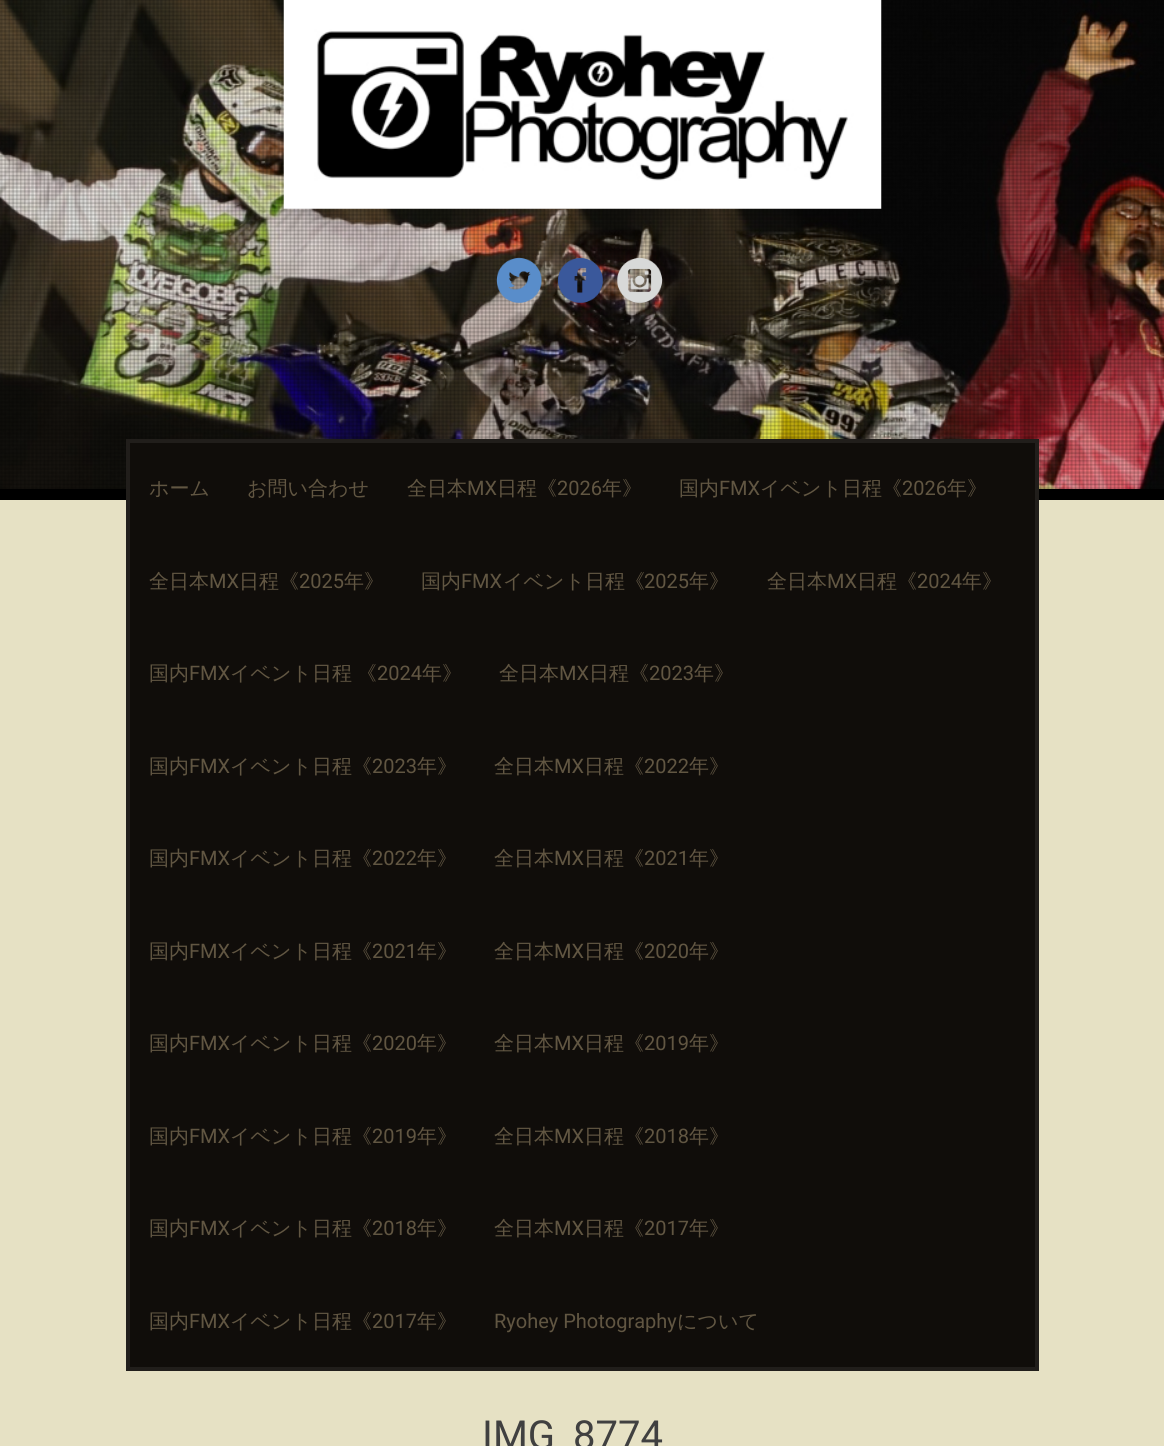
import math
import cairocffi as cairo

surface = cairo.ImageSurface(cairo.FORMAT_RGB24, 1164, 1446)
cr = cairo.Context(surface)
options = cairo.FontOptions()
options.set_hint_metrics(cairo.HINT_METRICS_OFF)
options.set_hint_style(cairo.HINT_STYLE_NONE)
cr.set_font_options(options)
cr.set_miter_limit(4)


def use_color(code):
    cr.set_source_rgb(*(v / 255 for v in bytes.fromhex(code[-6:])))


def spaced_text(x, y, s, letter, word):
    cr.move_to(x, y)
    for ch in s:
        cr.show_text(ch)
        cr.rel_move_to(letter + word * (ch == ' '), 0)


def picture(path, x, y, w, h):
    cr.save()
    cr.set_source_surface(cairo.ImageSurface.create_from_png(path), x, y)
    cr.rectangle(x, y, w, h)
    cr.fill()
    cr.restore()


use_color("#e6e1c4")
cr.paint()
picture("img1.png", 0, 0, 1164, 489)
picture("img2.png", 0, 0, 1164, 489)
use_color("#000000")
cr.rectangle(0, 489, 1164, 11)
cr.fill()
picture("img3.png", 283, 0, 599, 209)
picture("img4.png", 496, 257, 46, 47)
picture("img5.png", 557, 257, 47, 47)
picture("img6.png", 616, 257, 47, 47)
use_color("#100d0a")
cr.rectangle(128, 441, 909, 928)
cr.fill_preserve()
use_color("#211e1b")
cr.set_line_width(4)
cr.stroke()
cr.select_font_face("WenQuanYi Zen Hei Medium")
cr.set_font_size(20)
use_color("#615642")
cr.move_to(149, 495)
cr.show_text("ホーム")
cr.move_to(247, 495)
cr.show_text("お問い合わせ")
cr.move_to(407, 495)
cr.show_text("全日本")
cr.select_font_face("Roboto")
cr.move_to(467, 495)
cr.show_text("MX")
cr.select_font_face("WenQuanYi Zen Hei Medium")
cr.move_to(497, 495)
cr.show_text("日程《")
cr.select_font_face("Roboto")
cr.move_to(557, 495)
cr.show_text("2026")
cr.select_font_face("WenQuanYi Zen Hei Medium")
cr.move_to(602, 495)
cr.show_text("年》")
cr.move_to(679, 495)
cr.show_text("国内")
cr.select_font_face("Roboto")
cr.move_to(719, 495)
cr.show_text("FMX")
cr.select_font_face("WenQuanYi Zen Hei Medium")
cr.move_to(760, 495)
cr.show_text("イベント日程《")
cr.select_font_face("Roboto")
cr.move_to(902, 495)
cr.show_text("2026")
cr.select_font_face("WenQuanYi Zen Hei Medium")
cr.move_to(947, 495)
cr.show_text("年》")
cr.move_to(149, 588)
cr.show_text("全日本")
cr.select_font_face("Roboto")
cr.move_to(209, 588)
cr.show_text("MX")
cr.select_font_face("WenQuanYi Zen Hei Medium")
cr.move_to(239, 588)
cr.show_text("日程《")
cr.select_font_face("Roboto")
cr.move_to(299, 588)
cr.show_text("2025")
cr.select_font_face("WenQuanYi Zen Hei Medium")
cr.move_to(344, 588)
cr.show_text("年》")
cr.move_to(421, 588)
cr.show_text("国内")
cr.select_font_face("Roboto")
cr.move_to(461, 588)
cr.show_text("FMX")
cr.select_font_face("WenQuanYi Zen Hei Medium")
cr.move_to(503, 588)
cr.show_text("イベント日程《")
cr.select_font_face("Roboto")
cr.move_to(644, 588)
cr.show_text("2025")
cr.select_font_face("WenQuanYi Zen Hei Medium")
cr.move_to(689, 588)
cr.show_text("年》")
cr.move_to(767, 588)
cr.show_text("全日本")
cr.select_font_face("Roboto")
cr.move_to(827, 588)
cr.show_text("MX")
cr.select_font_face("WenQuanYi Zen Hei Medium")
cr.move_to(857, 588)
cr.show_text("日程《")
cr.select_font_face("Roboto")
cr.move_to(917, 588)
cr.show_text("2024")
cr.select_font_face("WenQuanYi Zen Hei Medium")
cr.move_to(962, 588)
cr.show_text("年》")
cr.move_to(149, 680)
cr.show_text("国内")
cr.select_font_face("Roboto")
cr.move_to(189, 680)
cr.show_text("FMX")
cr.select_font_face("WenQuanYi Zen Hei Medium")
spaced_text(230, 680, "イベント日程 《", 0, -1)
cr.select_font_face("Roboto")
cr.move_to(377, 680)
cr.show_text("2024")
cr.select_font_face("WenQuanYi Zen Hei Medium")
cr.move_to(422, 680)
cr.show_text("年》")
cr.move_to(499, 680)
cr.show_text("全日本")
cr.select_font_face("Roboto")
cr.move_to(559, 680)
cr.show_text("MX")
cr.select_font_face("WenQuanYi Zen Hei Medium")
cr.move_to(589, 680)
cr.show_text("日程《")
cr.select_font_face("Roboto")
cr.move_to(649, 680)
cr.show_text("2023")
cr.select_font_face("WenQuanYi Zen Hei Medium")
cr.move_to(694, 680)
cr.show_text("年》")
cr.move_to(149, 773)
cr.show_text("国内")
cr.select_font_face("Roboto")
cr.move_to(189, 773)
cr.show_text("FMX")
cr.select_font_face("WenQuanYi Zen Hei Medium")
cr.move_to(230, 773)
cr.show_text("イベント日程《")
cr.select_font_face("Roboto")
cr.move_to(372, 773)
cr.show_text("2023")
cr.select_font_face("WenQuanYi Zen Hei Medium")
cr.move_to(417, 773)
cr.show_text("年》")
cr.move_to(494, 773)
cr.show_text("全日本")
cr.select_font_face("Roboto")
cr.move_to(554, 773)
cr.show_text("MX")
cr.select_font_face("WenQuanYi Zen Hei Medium")
cr.move_to(584, 773)
cr.show_text("日程《")
cr.select_font_face("Roboto")
cr.move_to(644, 773)
cr.show_text("2022")
cr.select_font_face("WenQuanYi Zen Hei Medium")
cr.move_to(689, 773)
cr.show_text("年》")
cr.move_to(149, 865)
cr.show_text("国内")
cr.select_font_face("Roboto")
cr.move_to(189, 865)
cr.show_text("FMX")
cr.select_font_face("WenQuanYi Zen Hei Medium")
cr.move_to(230, 865)
cr.show_text("イベント日程《")
cr.select_font_face("Roboto")
cr.move_to(372, 865)
cr.show_text("2022")
cr.select_font_face("WenQuanYi Zen Hei Medium")
cr.move_to(417, 865)
cr.show_text("年》")
cr.move_to(494, 865)
cr.show_text("全日本")
cr.select_font_face("Roboto")
cr.move_to(554, 865)
cr.show_text("MX")
cr.select_font_face("WenQuanYi Zen Hei Medium")
cr.move_to(584, 865)
cr.show_text("日程《")
cr.select_font_face("Roboto")
cr.move_to(644, 865)
cr.show_text("2021")
cr.select_font_face("WenQuanYi Zen Hei Medium")
cr.move_to(689, 865)
cr.show_text("年》")
cr.move_to(149, 958)
cr.show_text("国内")
cr.select_font_face("Roboto")
cr.move_to(189, 958)
cr.show_text("FMX")
cr.select_font_face("WenQuanYi Zen Hei Medium")
cr.move_to(230, 958)
cr.show_text("イベント日程《")
cr.select_font_face("Roboto")
cr.move_to(372, 958)
cr.show_text("2021")
cr.select_font_face("WenQuanYi Zen Hei Medium")
cr.move_to(417, 958)
cr.show_text("年》")
cr.move_to(494, 958)
cr.show_text("全日本")
cr.select_font_face("Roboto")
cr.move_to(554, 958)
cr.show_text("MX")
cr.select_font_face("WenQuanYi Zen Hei Medium")
cr.move_to(584, 958)
cr.show_text("日程《")
cr.select_font_face("Roboto")
cr.move_to(644, 958)
cr.show_text("2020")
cr.select_font_face("WenQuanYi Zen Hei Medium")
cr.move_to(689, 958)
cr.show_text("年》")
cr.move_to(149, 1050)
cr.show_text("国内")
cr.select_font_face("Roboto")
cr.move_to(189, 1050)
cr.show_text("FMX")
cr.select_font_face("WenQuanYi Zen Hei Medium")
cr.move_to(230, 1050)
cr.show_text("イベント日程《")
cr.select_font_face("Roboto")
cr.move_to(372, 1050)
cr.show_text("2020")
cr.select_font_face("WenQuanYi Zen Hei Medium")
cr.move_to(417, 1050)
cr.show_text("年》")
cr.move_to(494, 1050)
cr.show_text("全日本")
cr.select_font_face("Roboto")
cr.move_to(554, 1050)
cr.show_text("MX")
cr.select_font_face("WenQuanYi Zen Hei Medium")
cr.move_to(584, 1050)
cr.show_text("日程《")
cr.select_font_face("Roboto")
cr.move_to(644, 1050)
cr.show_text("2019")
cr.select_font_face("WenQuanYi Zen Hei Medium")
cr.move_to(689, 1050)
cr.show_text("年》")
cr.move_to(149, 1143)
cr.show_text("国内")
cr.select_font_face("Roboto")
cr.move_to(189, 1143)
cr.show_text("FMX")
cr.select_font_face("WenQuanYi Zen Hei Medium")
cr.move_to(230, 1143)
cr.show_text("イベント日程《")
cr.select_font_face("Roboto")
cr.move_to(372, 1143)
cr.show_text("2019")
cr.select_font_face("WenQuanYi Zen Hei Medium")
cr.move_to(417, 1143)
cr.show_text("年》")
cr.move_to(494, 1143)
cr.show_text("全日本")
cr.select_font_face("Roboto")
cr.move_to(554, 1143)
cr.show_text("MX")
cr.select_font_face("WenQuanYi Zen Hei Medium")
cr.move_to(584, 1143)
cr.show_text("日程《")
cr.select_font_face("Roboto")
cr.move_to(644, 1143)
cr.show_text("2018")
cr.select_font_face("WenQuanYi Zen Hei Medium")
cr.move_to(689, 1143)
cr.show_text("年》")
cr.move_to(149, 1235)
cr.show_text("国内")
cr.select_font_face("Roboto")
cr.move_to(189, 1235)
cr.show_text("FMX")
cr.select_font_face("WenQuanYi Zen Hei Medium")
cr.move_to(230, 1235)
cr.show_text("イベント日程《")
cr.select_font_face("Roboto")
cr.move_to(372, 1235)
cr.show_text("2018")
cr.select_font_face("WenQuanYi Zen Hei Medium")
cr.move_to(417, 1235)
cr.show_text("年》")
cr.move_to(494, 1235)
cr.show_text("全日本")
cr.select_font_face("Roboto")
cr.move_to(554, 1235)
cr.show_text("MX")
cr.select_font_face("WenQuanYi Zen Hei Medium")
cr.move_to(584, 1235)
cr.show_text("日程《")
cr.select_font_face("Roboto")
cr.move_to(644, 1235)
cr.show_text("2017")
cr.select_font_face("WenQuanYi Zen Hei Medium")
cr.move_to(689, 1235)
cr.show_text("年》")
cr.move_to(149, 1328)
cr.show_text("国内")
cr.select_font_face("Roboto")
cr.move_to(189, 1328)
cr.show_text("FMX")
cr.select_font_face("WenQuanYi Zen Hei Medium")
cr.move_to(230, 1328)
cr.show_text("イベント日程《")
cr.select_font_face("Roboto")
cr.move_to(372, 1328)
cr.show_text("2017")
cr.select_font_face("WenQuanYi Zen Hei Medium")
cr.move_to(417, 1328)
cr.show_text("年》")
cr.select_font_face("Roboto")
cr.move_to(494, 1328)
cr.show_text("Ryohey Photography")
cr.select_font_face("WenQuanYi Zen Hei Medium")
cr.move_to(677, 1328)
cr.show_text("について")
cr.select_font_face("Roboto")
cr.set_font_size(40)
use_color("#404040")
cr.move_to(482, 1449)
cr.show_text("IMG_8774")
surface.write_to_png("result.png")
